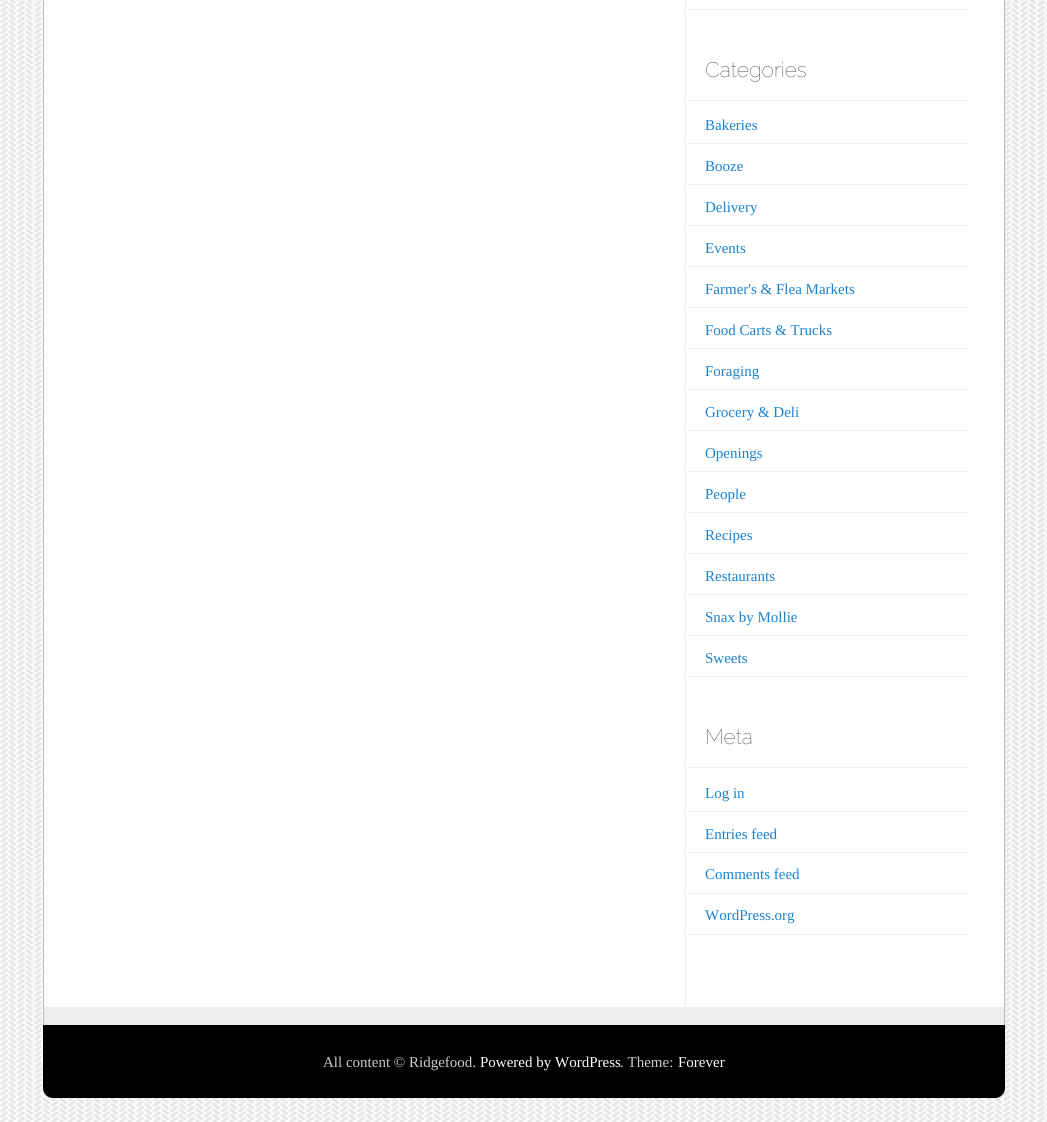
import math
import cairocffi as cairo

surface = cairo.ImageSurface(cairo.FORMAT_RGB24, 1047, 1122)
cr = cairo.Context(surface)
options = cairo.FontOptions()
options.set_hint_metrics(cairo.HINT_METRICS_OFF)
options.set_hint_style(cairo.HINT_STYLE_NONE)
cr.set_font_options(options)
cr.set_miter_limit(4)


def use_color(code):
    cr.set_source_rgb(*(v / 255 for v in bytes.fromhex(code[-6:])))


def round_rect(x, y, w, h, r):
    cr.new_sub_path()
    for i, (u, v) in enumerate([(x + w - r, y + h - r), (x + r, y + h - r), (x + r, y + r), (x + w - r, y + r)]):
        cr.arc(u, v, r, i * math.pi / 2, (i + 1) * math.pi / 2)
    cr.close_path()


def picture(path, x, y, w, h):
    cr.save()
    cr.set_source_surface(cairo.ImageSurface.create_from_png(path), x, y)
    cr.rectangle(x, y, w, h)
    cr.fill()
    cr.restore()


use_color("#ffffff")
cr.paint()
picture("img1.png", 0, 0, 1047, 1122)
use_color("#ffffff")
round_rect(43.5, -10.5, 961, 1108, 9.5)
cr.fill_preserve()
use_color("#bbbbbb")
cr.set_line_width(1)
cr.stroke()
use_color("#eeeeee")
cr.rectangle(44, 1007, 960, 18)
cr.fill()
cr.rectangle(685, 0, 1, 1007)
cr.fill()
cr.rectangle(687, 9, 282, 1)
cr.fill()
cr.rectangle(687, 100, 282, 1)
cr.fill()
cr.select_font_face("Raleway Thin")
cr.set_font_size(21)
use_color("#2a2a2a")
cr.move_to(705, 77)
cr.show_text("Categories")
use_color("#eeeeee")
cr.rectangle(687, 143, 282, 1)
cr.fill()
cr.select_font_face("Liberation Serif")
cr.set_font_size(15)
use_color("#1982d1")
cr.move_to(705, 130)
cr.show_text("Bakeries")
use_color("#eeeeee")
cr.rectangle(687, 184, 282, 1)
cr.fill()
use_color("#1982d1")
cr.move_to(705, 171)
cr.show_text("Booze")
use_color("#eeeeee")
cr.rectangle(687, 225, 282, 1)
cr.fill()
use_color("#1982d1")
cr.move_to(705, 212)
cr.show_text("Delivery")
use_color("#eeeeee")
cr.rectangle(687, 266, 282, 1)
cr.fill()
use_color("#1982d1")
cr.move_to(705, 253)
cr.show_text("Events")
use_color("#eeeeee")
cr.rectangle(687, 307, 282, 1)
cr.fill()
use_color("#1982d1")
cr.move_to(705, 294)
cr.show_text("Farmer's & Flea Markets")
use_color("#eeeeee")
cr.rectangle(687, 348, 282, 1)
cr.fill()
use_color("#1982d1")
cr.move_to(705, 335)
cr.show_text("Food Carts & Trucks")
use_color("#eeeeee")
cr.rectangle(687, 389, 282, 1)
cr.fill()
use_color("#1982d1")
cr.move_to(705, 376)
cr.show_text("Foraging")
use_color("#eeeeee")
cr.rectangle(687, 430, 282, 1)
cr.fill()
use_color("#1982d1")
cr.move_to(705, 417)
cr.show_text("Grocery & Deli")
use_color("#eeeeee")
cr.rectangle(687, 471, 282, 1)
cr.fill()
use_color("#1982d1")
cr.move_to(705, 458)
cr.show_text("Openings")
use_color("#eeeeee")
cr.rectangle(687, 512, 282, 1)
cr.fill()
use_color("#1982d1")
cr.move_to(705, 499)
cr.show_text("People")
use_color("#eeeeee")
cr.rectangle(687, 553, 282, 1)
cr.fill()
use_color("#1982d1")
cr.move_to(705, 540)
cr.show_text("Recipes")
use_color("#eeeeee")
cr.rectangle(687, 594, 282, 1)
cr.fill()
use_color("#1982d1")
cr.move_to(705, 581)
cr.show_text("Restaurants")
use_color("#eeeeee")
cr.rectangle(687, 635, 282, 1)
cr.fill()
use_color("#1982d1")
cr.move_to(705, 622)
cr.show_text("Snax by Mollie")
use_color("#eeeeee")
cr.rectangle(687, 676, 282, 1)
cr.fill()
use_color("#1982d1")
cr.move_to(705, 663)
cr.show_text("Sweets")
use_color("#eeeeee")
cr.rectangle(687, 767, 282, 1)
cr.fill()
cr.select_font_face("Raleway Thin")
cr.set_font_size(21)
use_color("#2a2a2a")
cr.move_to(705, 744)
cr.show_text("Meta")
use_color("#eeeeee")
cr.rectangle(687, 811, 282, 1)
cr.fill()
cr.select_font_face("Liberation Serif")
cr.set_font_size(15)
use_color("#1982d1")
cr.move_to(705, 798)
cr.show_text("Log in")
use_color("#eeeeee")
cr.rectangle(687, 852, 282, 1)
cr.fill()
use_color("#1982d1")
cr.move_to(705, 839)
cr.show_text("Entries feed")
use_color("#eeeeee")
cr.rectangle(687, 893, 282, 1)
cr.fill()
use_color("#1982d1")
cr.move_to(705, 879)
cr.show_text("Comments feed")
use_color("#eeeeee")
cr.rectangle(687, 934, 282, 1)
cr.fill()
use_color("#1982d1")
cr.move_to(705, 920)
cr.show_text("WordPress.org")
use_color("#000000")
cr.new_path()
cr.move_to(43, 1025)
cr.line_to(1005, 1025)
cr.line_to(1005, 1088)
cr.curve_to(1005, 1093.5, 1000.5, 1098, 995, 1098)
cr.line_to(53, 1098)
cr.curve_to(47.5, 1098, 43, 1093.5, 43, 1088)
cr.close_path()
cr.fill()
use_color("#cccccc")
cr.move_to(323, 1067)
cr.show_text("All content © Ridgefood.")
use_color("#ffffff")
cr.move_to(480, 1067)
cr.show_text("Powered by WordPress")
use_color("#cccccc")
cr.move_to(620, 1067)
cr.show_text(". Theme:")
use_color("#ffffff")
cr.move_to(678, 1067)
cr.show_text("Forever")
surface.write_to_png("result.png")
